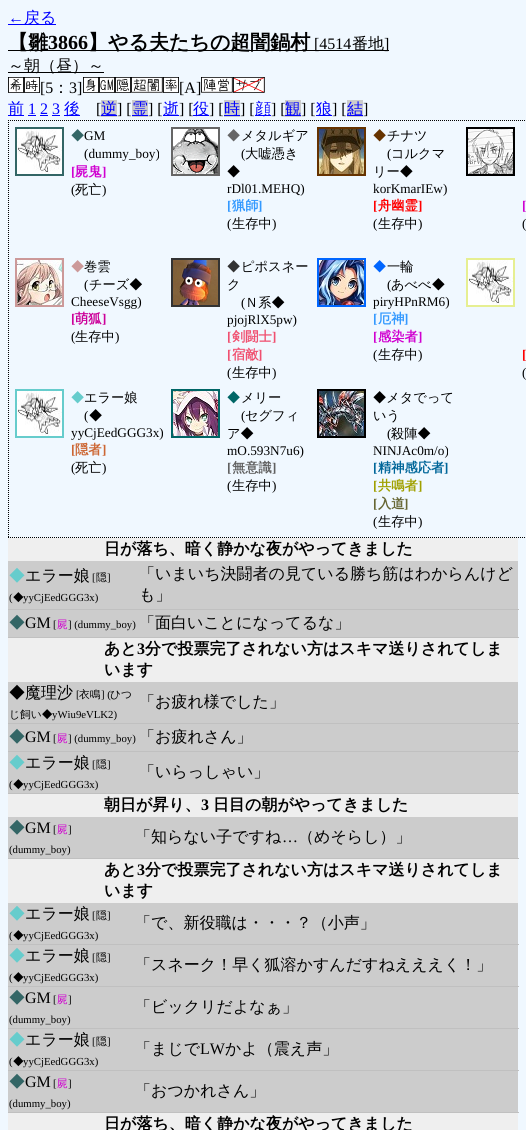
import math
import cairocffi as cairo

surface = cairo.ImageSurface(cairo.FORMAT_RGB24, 526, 1130)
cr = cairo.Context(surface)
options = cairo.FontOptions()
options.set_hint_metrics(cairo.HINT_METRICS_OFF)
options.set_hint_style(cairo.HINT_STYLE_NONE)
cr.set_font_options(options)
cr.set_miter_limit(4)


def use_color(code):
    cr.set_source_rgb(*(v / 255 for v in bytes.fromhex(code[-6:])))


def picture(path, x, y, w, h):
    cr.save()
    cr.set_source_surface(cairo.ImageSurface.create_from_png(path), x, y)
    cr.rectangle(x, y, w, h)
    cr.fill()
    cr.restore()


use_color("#f0f8ff")
cr.paint()
cr.select_font_face("Liberation Serif")
cr.set_font_size(16)
use_color("#0000ff")
cr.move_to(8, 23)
cr.show_text("←")
cr.rectangle(8, 24, 48, 1)
cr.fill()
cr.select_font_face("WenQuanYi Zen Hei Medium")
cr.move_to(24, 23)
cr.show_text("戻る")
use_color("#000000")
cr.rectangle(8, 50, 381, 1)
cr.fill()
cr.select_font_face("WenQuanYi Zen Hei", cairo.FONT_SLANT_NORMAL, cairo.FONT_WEIGHT_BOLD)
cr.set_font_size(20)
cr.move_to(8, 49)
cr.show_text("【雛")
cr.select_font_face("Liberation Serif", cairo.FONT_SLANT_NORMAL, cairo.FONT_WEIGHT_BOLD)
cr.move_to(48, 49)
cr.show_text("3866")
cr.select_font_face("WenQuanYi Zen Hei", cairo.FONT_SLANT_NORMAL, cairo.FONT_WEIGHT_BOLD)
cr.move_to(88, 49)
cr.show_text("】やる夫たちの超闇鍋村")
cr.select_font_face("Liberation Serif")
cr.set_font_size(16)
cr.move_to(314, 49)
cr.show_text("[4514")
cr.select_font_face("WenQuanYi Zen Hei Medium")
cr.move_to(352, 49)
cr.show_text("番地")
cr.select_font_face("Liberation Serif")
cr.move_to(384, 49)
cr.show_text("]")
cr.rectangle(8, 72, 96, 1)
cr.fill()
cr.select_font_face("WenQuanYi Zen Hei Medium")
cr.move_to(8, 71)
cr.show_text("～朝（昼）～")
picture("img1.png", 8, 77, 16, 16)
picture("img2.png", 24, 77, 16, 16)
cr.select_font_face("Liberation Serif")
cr.move_to(40, 93)
cr.show_text("[5")
cr.select_font_face("WenQuanYi Zen Hei Medium")
cr.move_to(53, 93)
cr.show_text("：")
cr.select_font_face("Liberation Serif")
cr.move_to(69, 93)
cr.show_text("3]")
picture("img3.png", 83, 77, 16, 16)
picture("img4.png", 99, 77, 16, 16)
picture("img5.png", 115, 77, 16, 16)
picture("img6.png", 131, 77, 32, 16)
picture("img7.png", 163, 77, 16, 16)
cr.move_to(179, 93)
cr.show_text("[A]")
picture("img8.png", 201, 77, 32, 16)
picture("img9.png", 233, 77, 32, 16)
use_color("#0000ff")
cr.rectangle(8, 115, 16, 1)
cr.fill()
cr.select_font_face("WenQuanYi Zen Hei Medium")
cr.move_to(8, 114)
cr.show_text("前")
cr.select_font_face("Liberation Serif")
cr.move_to(28, 114)
cr.show_text("1 2 3")
cr.rectangle(28, 115, 8, 1)
cr.fill()
cr.rectangle(64, 115, 16, 1)
cr.fill()
cr.select_font_face("WenQuanYi Zen Hei Medium")
cr.move_to(64, 114)
cr.show_text("後")
cr.select_font_face("Liberation Serif")
use_color("#000000")
cr.move_to(96, 114)
cr.show_text("[")
use_color("#cccccc")
cr.rectangle(101, 100, 16, 17)
cr.fill()
use_color("#0000ff")
cr.rectangle(101, 115, 16, 1)
cr.fill()
cr.select_font_face("WenQuanYi Zen Hei Medium")
cr.move_to(101, 114)
cr.show_text("逆")
cr.select_font_face("Liberation Serif")
use_color("#000000")
cr.move_to(117, 114)
cr.show_text("] [")
use_color("#cccccc")
cr.rectangle(132, 100, 16, 17)
cr.fill()
use_color("#0000ff")
cr.rectangle(132, 115, 16, 1)
cr.fill()
cr.select_font_face("WenQuanYi Zen Hei Medium")
cr.move_to(132, 114)
cr.show_text("霊")
cr.select_font_face("Liberation Serif")
use_color("#000000")
cr.move_to(148, 114)
cr.show_text("] [")
use_color("#0000ff")
cr.rectangle(163, 115, 16, 1)
cr.fill()
cr.select_font_face("WenQuanYi Zen Hei Medium")
cr.move_to(163, 114)
cr.show_text("逝")
cr.select_font_face("Liberation Serif")
use_color("#000000")
cr.move_to(179, 114)
cr.show_text("] [")
use_color("#0000ff")
cr.rectangle(193, 115, 16, 1)
cr.fill()
cr.select_font_face("WenQuanYi Zen Hei Medium")
cr.move_to(193, 114)
cr.show_text("役")
cr.select_font_face("Liberation Serif")
use_color("#000000")
cr.move_to(209, 114)
cr.show_text("] [")
use_color("#cccccc")
cr.rectangle(224, 100, 16, 17)
cr.fill()
use_color("#0000ff")
cr.rectangle(224, 115, 16, 1)
cr.fill()
cr.select_font_face("WenQuanYi Zen Hei Medium")
cr.move_to(224, 114)
cr.show_text("時")
cr.select_font_face("Liberation Serif")
use_color("#000000")
cr.move_to(240, 114)
cr.show_text("] [")
use_color("#0000ff")
cr.rectangle(255, 115, 16, 1)
cr.fill()
cr.select_font_face("WenQuanYi Zen Hei Medium")
cr.move_to(255, 114)
cr.show_text("顔")
cr.select_font_face("Liberation Serif")
use_color("#000000")
cr.move_to(271, 114)
cr.show_text("] [")
use_color("#cccccc")
cr.rectangle(285, 100, 16, 17)
cr.fill()
use_color("#0000ff")
cr.rectangle(285, 115, 16, 1)
cr.fill()
cr.select_font_face("WenQuanYi Zen Hei Medium")
cr.move_to(285, 114)
cr.show_text("観")
cr.select_font_face("Liberation Serif")
use_color("#000000")
cr.move_to(301, 114)
cr.show_text("] [")
use_color("#0000ff")
cr.rectangle(316, 115, 16, 1)
cr.fill()
cr.select_font_face("WenQuanYi Zen Hei Medium")
cr.move_to(316, 114)
cr.show_text("狼")
cr.select_font_face("Liberation Serif")
use_color("#000000")
cr.move_to(332, 114)
cr.show_text("] [")
use_color("#cccccc")
cr.rectangle(347, 100, 16, 17)
cr.fill()
use_color("#0000ff")
cr.rectangle(347, 115, 16, 1)
cr.fill()
cr.select_font_face("WenQuanYi Zen Hei Medium")
cr.move_to(347, 114)
cr.show_text("結")
cr.select_font_face("Liberation Serif")
use_color("#000000")
cr.move_to(363, 114)
cr.show_text("]")
use_color("#0000ff")
cr.rectangle(40, 115, 8, 1)
cr.fill()
cr.rectangle(52, 115, 8, 1)
cr.fill()
cr.new_path()
cr.move_to(8, 120.5)
cr.line_to(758, 120.5)
use_color("#000000")
cr.set_line_width(1)
cr.set_dash([1, 1])
cr.stroke()
cr.new_path()
cr.move_to(8, 537.5)
cr.line_to(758, 537.5)
cr.stroke()
cr.new_path()
cr.move_to(8.5, 120)
cr.line_to(8.5, 538)
cr.stroke()
cr.rectangle(16, 128, 47, 47)
use_color("#336666")
cr.set_line_width(2)
cr.set_dash([])
cr.stroke()
picture("img10.png", 17, 129, 45, 45)
cr.select_font_face("WenQuanYi Zen Hei Medium")
cr.set_font_size(13.25)
cr.move_to(71, 140)
cr.show_text("◆")
cr.select_font_face("Liberation Serif")
use_color("#000000")
cr.move_to(84, 140)
cr.show_text("GM")
cr.move_to(84, 158)
cr.show_text("(dummy_boy)")
cr.select_font_face("Liberation Serif", cairo.FONT_SLANT_NORMAL, cairo.FONT_WEIGHT_BOLD)
use_color("#d000d0")
cr.move_to(71, 176)
cr.show_text("[")
cr.select_font_face("WenQuanYi Zen Hei", cairo.FONT_SLANT_NORMAL, cairo.FONT_WEIGHT_BOLD)
cr.move_to(75, 176)
cr.show_text("屍鬼")
cr.select_font_face("Liberation Serif", cairo.FONT_SLANT_NORMAL, cairo.FONT_WEIGHT_BOLD)
cr.move_to(102, 176)
cr.show_text("]")
cr.select_font_face("Liberation Serif")
use_color("#000000")
cr.move_to(71, 194)
cr.show_text("(")
cr.select_font_face("WenQuanYi Zen Hei Medium")
cr.move_to(75, 194)
cr.show_text("死亡")
cr.select_font_face("Liberation Serif")
cr.move_to(102, 194)
cr.show_text(")")
cr.rectangle(172, 128, 47, 47)
use_color("#666666")
cr.stroke()
picture("img11.png", 173, 129, 45, 45)
cr.select_font_face("WenQuanYi Zen Hei Medium")
cr.move_to(227, 140)
cr.show_text("◆")
use_color("#000000")
cr.move_to(241, 140)
cr.show_text("メタルギア")
cr.select_font_face("Liberation Serif")
cr.move_to(241, 158)
cr.show_text("(")
cr.select_font_face("WenQuanYi Zen Hei Medium")
cr.move_to(245, 158)
cr.show_text("大嘘憑き")
cr.move_to(227, 176)
cr.show_text("◆")
cr.select_font_face("Liberation Serif")
cr.move_to(227, 193)
cr.show_text("rDl01.MEHQ)")
cr.select_font_face("Liberation Serif", cairo.FONT_SLANT_NORMAL, cairo.FONT_WEIGHT_BOLD)
use_color("#3399ff")
cr.move_to(227, 210)
cr.show_text("[")
cr.select_font_face("WenQuanYi Zen Hei", cairo.FONT_SLANT_NORMAL, cairo.FONT_WEIGHT_BOLD)
cr.move_to(232, 210)
cr.show_text("猟師")
cr.select_font_face("Liberation Serif", cairo.FONT_SLANT_NORMAL, cairo.FONT_WEIGHT_BOLD)
cr.move_to(258, 210)
cr.show_text("]")
cr.select_font_face("Liberation Serif")
use_color("#000000")
cr.move_to(227, 228)
cr.show_text("(")
cr.select_font_face("WenQuanYi Zen Hei Medium")
cr.move_to(232, 228)
cr.show_text("生存中")
cr.select_font_face("Liberation Serif")
cr.move_to(272, 228)
cr.show_text(")")
cr.rectangle(318, 128, 47, 47)
use_color("#663300")
cr.stroke()
picture("img12.png", 319, 129, 45, 45)
cr.select_font_face("WenQuanYi Zen Hei Medium")
cr.move_to(373, 140)
cr.show_text("◆")
use_color("#000000")
cr.move_to(387, 140)
cr.show_text("チナツ")
cr.select_font_face("Liberation Serif")
cr.move_to(387, 158)
cr.show_text("(")
cr.select_font_face("WenQuanYi Zen Hei Medium")
cr.move_to(391, 158)
cr.show_text("コルクマ")
cr.move_to(373, 176)
cr.show_text("リー◆")
cr.select_font_face("Liberation Serif")
cr.move_to(373, 193)
cr.show_text("korKmarIEw)")
cr.select_font_face("Liberation Serif", cairo.FONT_SLANT_NORMAL, cairo.FONT_WEIGHT_BOLD)
use_color("#ff0000")
cr.move_to(373, 210)
cr.show_text("[")
cr.select_font_face("WenQuanYi Zen Hei", cairo.FONT_SLANT_NORMAL, cairo.FONT_WEIGHT_BOLD)
cr.move_to(378, 210)
cr.show_text("舟幽霊")
cr.select_font_face("Liberation Serif", cairo.FONT_SLANT_NORMAL, cairo.FONT_WEIGHT_BOLD)
cr.move_to(418, 210)
cr.show_text("]")
cr.select_font_face("Liberation Serif")
use_color("#000000")
cr.move_to(373, 228)
cr.show_text("(")
cr.select_font_face("WenQuanYi Zen Hei Medium")
cr.move_to(378, 228)
cr.show_text("生存中")
cr.select_font_face("Liberation Serif")
cr.move_to(418, 228)
cr.show_text(")")
cr.rectangle(467, 128, 47, 47)
cr.stroke()
picture("img13.png", 468, 129, 45, 45)
cr.select_font_face("Liberation Serif", cairo.FONT_SLANT_NORMAL, cairo.FONT_WEIGHT_BOLD)
use_color("#d000d0")
cr.move_to(522, 210)
cr.show_text("[")
cr.select_font_face("Liberation Serif")
use_color("#000000")
cr.move_to(522, 228)
cr.show_text("(")
cr.rectangle(16, 259, 47, 47)
use_color("#cc9999")
cr.stroke()
picture("img14.png", 17, 260, 45, 45)
cr.select_font_face("WenQuanYi Zen Hei Medium")
cr.move_to(71, 271)
cr.show_text("◆")
use_color("#000000")
cr.move_to(84, 271)
cr.show_text("巻雲")
cr.select_font_face("Liberation Serif")
cr.move_to(84, 289)
cr.show_text("(")
cr.select_font_face("WenQuanYi Zen Hei Medium")
cr.move_to(89, 289)
cr.show_text("チーズ◆")
cr.select_font_face("Liberation Serif")
cr.move_to(71, 306)
cr.show_text("CheeseVsgg)")
cr.select_font_face("Liberation Serif", cairo.FONT_SLANT_NORMAL, cairo.FONT_WEIGHT_BOLD)
use_color("#cc0099")
cr.move_to(71, 323)
cr.show_text("[")
cr.select_font_face("WenQuanYi Zen Hei", cairo.FONT_SLANT_NORMAL, cairo.FONT_WEIGHT_BOLD)
cr.move_to(75, 323)
cr.show_text("萌狐")
cr.select_font_face("Liberation Serif", cairo.FONT_SLANT_NORMAL, cairo.FONT_WEIGHT_BOLD)
cr.move_to(102, 323)
cr.show_text("]")
cr.select_font_face("Liberation Serif")
use_color("#000000")
cr.move_to(71, 341)
cr.show_text("(")
cr.select_font_face("WenQuanYi Zen Hei Medium")
cr.move_to(75, 341)
cr.show_text("生存中")
cr.select_font_face("Liberation Serif")
cr.move_to(115, 341)
cr.show_text(")")
cr.rectangle(172, 259, 47, 47)
use_color("#333333")
cr.stroke()
picture("img15.png", 173, 260, 45, 45)
cr.select_font_face("WenQuanYi Zen Hei Medium")
cr.move_to(227, 271)
cr.show_text("◆")
use_color("#000000")
cr.move_to(241, 271)
cr.show_text("ピポスネー")
cr.move_to(227, 289)
cr.show_text("ク")
cr.select_font_face("Liberation Serif")
cr.move_to(241, 307)
cr.show_text("(")
cr.select_font_face("WenQuanYi Zen Hei Medium")
cr.move_to(245, 307)
cr.show_text("Ｎ系◆")
cr.select_font_face("Liberation Serif")
cr.move_to(227, 324)
cr.show_text("pjojRlX5pw)")
cr.select_font_face("Liberation Serif", cairo.FONT_SLANT_NORMAL, cairo.FONT_WEIGHT_BOLD)
use_color("#f05070")
cr.move_to(227, 341)
cr.show_text("[")
cr.select_font_face("WenQuanYi Zen Hei", cairo.FONT_SLANT_NORMAL, cairo.FONT_WEIGHT_BOLD)
cr.move_to(232, 341)
cr.show_text("剣闘士")
cr.select_font_face("Liberation Serif", cairo.FONT_SLANT_NORMAL, cairo.FONT_WEIGHT_BOLD)
cr.move_to(272, 341)
cr.show_text("]")
cr.move_to(227, 359)
cr.show_text("[")
cr.select_font_face("WenQuanYi Zen Hei", cairo.FONT_SLANT_NORMAL, cairo.FONT_WEIGHT_BOLD)
cr.move_to(232, 359)
cr.show_text("宿敵")
cr.select_font_face("Liberation Serif", cairo.FONT_SLANT_NORMAL, cairo.FONT_WEIGHT_BOLD)
cr.move_to(258, 359)
cr.show_text("]")
cr.select_font_face("Liberation Serif")
use_color("#000000")
cr.move_to(227, 377)
cr.show_text("(")
cr.select_font_face("WenQuanYi Zen Hei Medium")
cr.move_to(232, 377)
cr.show_text("生存中")
cr.select_font_face("Liberation Serif")
cr.move_to(272, 377)
cr.show_text(")")
cr.rectangle(318, 259, 47, 47)
use_color("#0066ff")
cr.stroke()
picture("img16.png", 319, 260, 45, 45)
cr.select_font_face("WenQuanYi Zen Hei Medium")
cr.move_to(373, 271)
cr.show_text("◆")
use_color("#000000")
cr.move_to(387, 271)
cr.show_text("一輪")
cr.select_font_face("Liberation Serif")
cr.move_to(387, 289)
cr.show_text("(")
cr.select_font_face("WenQuanYi Zen Hei Medium")
cr.move_to(391, 289)
cr.show_text("あべべ◆")
cr.select_font_face("Liberation Serif")
cr.move_to(373, 306)
cr.show_text("piryHPnRM6)")
cr.select_font_face("Liberation Serif", cairo.FONT_SLANT_NORMAL, cairo.FONT_WEIGHT_BOLD)
use_color("#3399ff")
cr.move_to(373, 323)
cr.show_text("[")
cr.select_font_face("WenQuanYi Zen Hei", cairo.FONT_SLANT_NORMAL, cairo.FONT_WEIGHT_BOLD)
cr.move_to(378, 323)
cr.show_text("厄神")
cr.select_font_face("Liberation Serif", cairo.FONT_SLANT_NORMAL, cairo.FONT_WEIGHT_BOLD)
cr.move_to(404, 323)
cr.show_text("]")
use_color("#d000d0")
cr.move_to(373, 341)
cr.show_text("[")
cr.select_font_face("WenQuanYi Zen Hei", cairo.FONT_SLANT_NORMAL, cairo.FONT_WEIGHT_BOLD)
cr.move_to(378, 341)
cr.show_text("感染者")
cr.select_font_face("Liberation Serif", cairo.FONT_SLANT_NORMAL, cairo.FONT_WEIGHT_BOLD)
cr.move_to(418, 341)
cr.show_text("]")
cr.select_font_face("Liberation Serif")
use_color("#000000")
cr.move_to(373, 359)
cr.show_text("(")
cr.select_font_face("WenQuanYi Zen Hei Medium")
cr.move_to(378, 359)
cr.show_text("生存中")
cr.select_font_face("Liberation Serif")
cr.move_to(418, 359)
cr.show_text(")")
cr.rectangle(467, 259, 47, 47)
use_color("#e6ef92")
cr.stroke()
picture("img17.png", 468, 260, 45, 45)
cr.select_font_face("Liberation Serif", cairo.FONT_SLANT_NORMAL, cairo.FONT_WEIGHT_BOLD)
use_color("#ff0000")
cr.move_to(522, 359)
cr.show_text("[")
cr.select_font_face("Liberation Serif")
use_color("#000000")
cr.move_to(522, 377)
cr.show_text("(")
cr.rectangle(16, 390, 47, 47)
use_color("#66cccc")
cr.stroke()
picture("img17.png", 17, 391, 45, 45)
cr.select_font_face("WenQuanYi Zen Hei Medium")
cr.move_to(71, 402)
cr.show_text("◆")
use_color("#000000")
cr.move_to(84, 402)
cr.show_text("エラー娘")
cr.select_font_face("Liberation Serif")
cr.move_to(84, 420)
cr.show_text("(")
cr.select_font_face("WenQuanYi Zen Hei Medium")
cr.move_to(89, 420)
cr.show_text("◆")
cr.select_font_face("Liberation Serif")
cr.move_to(71, 437)
cr.show_text("yyCjEedGGG3x)")
cr.select_font_face("Liberation Serif", cairo.FONT_SLANT_NORMAL, cairo.FONT_WEIGHT_BOLD)
use_color("#cc6633")
cr.move_to(71, 454)
cr.show_text("[")
cr.select_font_face("WenQuanYi Zen Hei", cairo.FONT_SLANT_NORMAL, cairo.FONT_WEIGHT_BOLD)
cr.move_to(75, 454)
cr.show_text("隠者")
cr.select_font_face("Liberation Serif", cairo.FONT_SLANT_NORMAL, cairo.FONT_WEIGHT_BOLD)
cr.move_to(102, 454)
cr.show_text("]")
cr.select_font_face("Liberation Serif")
use_color("#000000")
cr.move_to(71, 472)
cr.show_text("(")
cr.select_font_face("WenQuanYi Zen Hei Medium")
cr.move_to(75, 472)
cr.show_text("死亡")
cr.select_font_face("Liberation Serif")
cr.move_to(102, 472)
cr.show_text(")")
cr.rectangle(172, 390, 47, 47)
use_color("#006666")
cr.stroke()
picture("img18.png", 173, 391, 45, 45)
cr.select_font_face("WenQuanYi Zen Hei Medium")
cr.move_to(227, 402)
cr.show_text("◆")
use_color("#000000")
cr.move_to(241, 402)
cr.show_text("メリー")
cr.select_font_face("Liberation Serif")
cr.move_to(241, 420)
cr.show_text("(")
cr.select_font_face("WenQuanYi Zen Hei Medium")
cr.move_to(245, 420)
cr.show_text("セグフィ")
cr.move_to(227, 438)
cr.show_text("ア◆")
cr.select_font_face("Liberation Serif")
cr.move_to(227, 455)
cr.show_text("mO.593N7u6)")
cr.select_font_face("Liberation Serif", cairo.FONT_SLANT_NORMAL, cairo.FONT_WEIGHT_BOLD)
use_color("#606060")
cr.move_to(227, 472)
cr.show_text("[")
cr.select_font_face("WenQuanYi Zen Hei", cairo.FONT_SLANT_NORMAL, cairo.FONT_WEIGHT_BOLD)
cr.move_to(232, 472)
cr.show_text("無意識")
cr.select_font_face("Liberation Serif", cairo.FONT_SLANT_NORMAL, cairo.FONT_WEIGHT_BOLD)
cr.move_to(272, 472)
cr.show_text("]")
cr.select_font_face("Liberation Serif")
use_color("#000000")
cr.move_to(227, 490)
cr.show_text("(")
cr.select_font_face("WenQuanYi Zen Hei Medium")
cr.move_to(232, 490)
cr.show_text("生存中")
cr.select_font_face("Liberation Serif")
cr.move_to(272, 490)
cr.show_text(")")
cr.rectangle(318, 390, 47, 47)
cr.stroke()
picture("img19.png", 319, 391, 45, 45)
cr.select_font_face("WenQuanYi Zen Hei Medium")
cr.move_to(373, 402)
cr.show_text("◆メタでって")
cr.move_to(373, 420)
cr.show_text("いう")
cr.select_font_face("Liberation Serif")
cr.move_to(387, 438)
cr.show_text("(")
cr.select_font_face("WenQuanYi Zen Hei Medium")
cr.move_to(391, 438)
cr.show_text("殺陣◆")
cr.select_font_face("Liberation Serif")
cr.move_to(373, 455)
cr.show_text("NINJAc0m/o)")
cr.select_font_face("Liberation Serif", cairo.FONT_SLANT_NORMAL, cairo.FONT_WEIGHT_BOLD)
use_color("#006699")
cr.move_to(373, 472)
cr.show_text("[")
cr.select_font_face("WenQuanYi Zen Hei", cairo.FONT_SLANT_NORMAL, cairo.FONT_WEIGHT_BOLD)
cr.move_to(378, 472)
cr.show_text("精神感応者")
cr.select_font_face("Liberation Serif", cairo.FONT_SLANT_NORMAL, cairo.FONT_WEIGHT_BOLD)
cr.move_to(444, 472)
cr.show_text("]")
use_color("#a0a000")
cr.move_to(373, 490)
cr.show_text("[")
cr.select_font_face("WenQuanYi Zen Hei", cairo.FONT_SLANT_NORMAL, cairo.FONT_WEIGHT_BOLD)
cr.move_to(378, 490)
cr.show_text("共鳴者")
cr.select_font_face("Liberation Serif", cairo.FONT_SLANT_NORMAL, cairo.FONT_WEIGHT_BOLD)
cr.move_to(418, 490)
cr.show_text("]")
use_color("#666633")
cr.move_to(373, 508)
cr.show_text("[")
cr.select_font_face("WenQuanYi Zen Hei", cairo.FONT_SLANT_NORMAL, cairo.FONT_WEIGHT_BOLD)
cr.move_to(378, 508)
cr.show_text("入道")
cr.select_font_face("Liberation Serif", cairo.FONT_SLANT_NORMAL, cairo.FONT_WEIGHT_BOLD)
cr.move_to(404, 508)
cr.show_text("]")
cr.select_font_face("Liberation Serif")
use_color("#000000")
cr.move_to(373, 526)
cr.show_text("(")
cr.select_font_face("WenQuanYi Zen Hei Medium")
cr.move_to(378, 526)
cr.show_text("生存中")
cr.select_font_face("Liberation Serif")
cr.move_to(418, 526)
cr.show_text(")")
use_color("#efefef")
cr.rectangle(8, 538, 510, 23)
cr.fill()
cr.select_font_face("WenQuanYi Zen Hei", cairo.FONT_SLANT_NORMAL, cairo.FONT_WEIGHT_BOLD)
cr.set_font_size(16)
use_color("#000000")
cr.move_to(104, 554)
cr.show_text("日が落ち、暗く静かな夜がやってきました")
use_color("#cccccc")
cr.rectangle(8, 561, 510, 48)
cr.fill()
cr.select_font_face("WenQuanYi Zen Hei Medium")
use_color("#66cccc")
cr.move_to(9, 581)
cr.show_text("◆")
use_color("#000000")
cr.move_to(25, 581)
cr.show_text("エラー娘")
cr.select_font_face("Liberation Serif")
cr.set_font_size(10.75)
cr.move_to(92, 581)
cr.show_text("[")
cr.select_font_face("WenQuanYi Zen Hei Medium")
cr.move_to(96, 581)
cr.show_text("隠")
cr.select_font_face("Liberation Serif")
cr.move_to(107, 581)
cr.show_text("]")
cr.move_to(9, 601)
cr.show_text("(")
cr.select_font_face("WenQuanYi Zen Hei Medium")
cr.move_to(13, 601)
cr.show_text("◆")
cr.select_font_face("Liberation Serif")
cr.move_to(23, 601)
cr.show_text("yyCjEedGGG3x)")
use_color("#c0c0c0")
cr.rectangle(8, 609, 511, 1)
cr.fill()
cr.select_font_face("WenQuanYi Zen Hei Medium")
cr.set_font_size(16)
use_color("#000000")
cr.move_to(139, 579)
cr.show_text("「いまいち決闘者の見ている勝ち筋はわからんけど")
cr.move_to(139, 600)
cr.show_text("も」")
use_color("#cccccc")
cr.rectangle(8, 610, 510, 27)
cr.fill()
use_color("#336666")
cr.move_to(9, 628)
cr.show_text("◆")
cr.select_font_face("Liberation Serif")
use_color("#000000")
cr.move_to(25, 628)
cr.show_text("GM")
cr.set_font_size(10.75)
cr.move_to(53, 628)
cr.show_text("[")
cr.select_font_face("WenQuanYi Zen Hei Medium")
use_color("#d000d0")
cr.move_to(57, 628)
cr.show_text("屍")
cr.select_font_face("Liberation Serif")
use_color("#000000")
cr.move_to(68, 628)
cr.show_text("] (dummy_boy)")
use_color("#c0c0c0")
cr.rectangle(8, 637, 511, 1)
cr.fill()
cr.select_font_face("WenQuanYi Zen Hei Medium")
cr.set_font_size(16)
use_color("#000000")
cr.move_to(139, 628)
cr.show_text("「面白いことになってるな」")
use_color("#efefef")
cr.rectangle(8, 638, 510, 44)
cr.fill()
cr.select_font_face("WenQuanYi Zen Hei", cairo.FONT_SLANT_NORMAL, cairo.FONT_WEIGHT_BOLD)
use_color("#000000")
cr.move_to(104, 654)
cr.show_text("あと")
cr.select_font_face("Liberation Serif", cairo.FONT_SLANT_NORMAL, cairo.FONT_WEIGHT_BOLD)
cr.move_to(137, 654)
cr.show_text("3")
cr.select_font_face("WenQuanYi Zen Hei", cairo.FONT_SLANT_NORMAL, cairo.FONT_WEIGHT_BOLD)
cr.move_to(145, 654)
cr.show_text("分で投票完了されない方はスキマ送りされてしま")
cr.move_to(104, 675)
cr.show_text("います")
use_color("#cccccc")
cr.rectangle(8, 682, 510, 41)
cr.fill()
cr.select_font_face("WenQuanYi Zen Hei Medium")
use_color("#000000")
cr.move_to(9, 698)
cr.show_text("◆魔理沙")
cr.select_font_face("Liberation Serif")
cr.set_font_size(10.75)
cr.move_to(76, 698)
cr.show_text("[")
cr.select_font_face("WenQuanYi Zen Hei Medium")
cr.move_to(79, 698)
cr.show_text("衣鳴")
cr.select_font_face("Liberation Serif")
cr.move_to(101, 698)
cr.show_text("] (")
cr.select_font_face("WenQuanYi Zen Hei Medium")
cr.move_to(110, 698)
cr.show_text("ひつ")
cr.move_to(9, 718)
cr.show_text("じ飼い◆")
cr.select_font_face("Liberation Serif")
cr.move_to(52, 718)
cr.show_text("yWiu9eVLK2)")
use_color("#c0c0c0")
cr.rectangle(8, 723, 511, 1)
cr.fill()
cr.select_font_face("WenQuanYi Zen Hei Medium")
cr.set_font_size(16)
use_color("#000000")
cr.move_to(139, 707)
cr.show_text("「お疲れ様でした」")
use_color("#cccccc")
cr.rectangle(8, 724, 510, 27)
cr.fill()
use_color("#336666")
cr.move_to(9, 742)
cr.show_text("◆")
cr.select_font_face("Liberation Serif")
use_color("#000000")
cr.move_to(25, 742)
cr.show_text("GM")
cr.set_font_size(10.75)
cr.move_to(53, 742)
cr.show_text("[")
cr.select_font_face("WenQuanYi Zen Hei Medium")
use_color("#d000d0")
cr.move_to(57, 742)
cr.show_text("屍")
cr.select_font_face("Liberation Serif")
use_color("#000000")
cr.move_to(68, 742)
cr.show_text("] (dummy_boy)")
use_color("#c0c0c0")
cr.rectangle(8, 751, 511, 1)
cr.fill()
cr.select_font_face("WenQuanYi Zen Hei Medium")
cr.set_font_size(16)
use_color("#000000")
cr.move_to(139, 742)
cr.show_text("「お疲れさん」")
use_color("#cccccc")
cr.rectangle(8, 752, 510, 41)
cr.fill()
use_color("#66cccc")
cr.move_to(9, 768)
cr.show_text("◆")
use_color("#000000")
cr.move_to(25, 768)
cr.show_text("エラー娘")
cr.select_font_face("Liberation Serif")
cr.set_font_size(10.75)
cr.move_to(92, 768)
cr.show_text("[")
cr.select_font_face("WenQuanYi Zen Hei Medium")
cr.move_to(96, 768)
cr.show_text("隠")
cr.select_font_face("Liberation Serif")
cr.move_to(107, 768)
cr.show_text("]")
cr.move_to(9, 788)
cr.show_text("(")
cr.select_font_face("WenQuanYi Zen Hei Medium")
cr.move_to(13, 788)
cr.show_text("◆")
cr.select_font_face("Liberation Serif")
cr.move_to(23, 788)
cr.show_text("yyCjEedGGG3x)")
use_color("#c0c0c0")
cr.rectangle(8, 793, 511, 1)
cr.fill()
cr.select_font_face("WenQuanYi Zen Hei Medium")
cr.set_font_size(16)
use_color("#000000")
cr.move_to(139, 777)
cr.show_text("「いらっしゃい」")
use_color("#efefef")
cr.rectangle(8, 794, 510, 23)
cr.fill()
cr.select_font_face("WenQuanYi Zen Hei", cairo.FONT_SLANT_NORMAL, cairo.FONT_WEIGHT_BOLD)
use_color("#000000")
cr.move_to(104, 810)
cr.show_text("朝日が昇り、")
cr.select_font_face("Liberation Serif", cairo.FONT_SLANT_NORMAL, cairo.FONT_WEIGHT_BOLD)
cr.move_to(201, 810)
cr.show_text("3")
cr.select_font_face("WenQuanYi Zen Hei", cairo.FONT_SLANT_NORMAL, cairo.FONT_WEIGHT_BOLD)
cr.move_to(213, 810)
cr.show_text("日目の朝がやってきました")
use_color("#cccccc")
cr.rectangle(8, 817, 510, 41)
cr.fill()
cr.select_font_face("WenQuanYi Zen Hei Medium")
use_color("#336666")
cr.move_to(9, 833)
cr.show_text("◆")
cr.select_font_face("Liberation Serif")
use_color("#000000")
cr.move_to(25, 833)
cr.show_text("GM")
cr.set_font_size(10.75)
cr.move_to(53, 833)
cr.show_text("[")
cr.select_font_face("WenQuanYi Zen Hei Medium")
use_color("#d000d0")
cr.move_to(57, 833)
cr.show_text("屍")
cr.select_font_face("Liberation Serif")
use_color("#000000")
cr.move_to(68, 833)
cr.show_text("]")
cr.move_to(9, 853)
cr.show_text("(dummy_boy)")
use_color("#c0c0c0")
cr.rectangle(8, 858, 511, 1)
cr.fill()
cr.select_font_face("WenQuanYi Zen Hei Medium")
cr.set_font_size(16)
use_color("#000000")
cr.move_to(135, 842)
cr.show_text("「知らない子ですね")
cr.select_font_face("Liberation Serif")
cr.move_to(282, 842)
cr.show_text("…")
cr.select_font_face("WenQuanYi Zen Hei Medium")
cr.move_to(298, 842)
cr.show_text("（めそらし）」")
use_color("#efefef")
cr.rectangle(8, 859, 510, 44)
cr.fill()
cr.select_font_face("WenQuanYi Zen Hei", cairo.FONT_SLANT_NORMAL, cairo.FONT_WEIGHT_BOLD)
use_color("#000000")
cr.move_to(104, 875)
cr.show_text("あと")
cr.select_font_face("Liberation Serif", cairo.FONT_SLANT_NORMAL, cairo.FONT_WEIGHT_BOLD)
cr.move_to(137, 875)
cr.show_text("3")
cr.select_font_face("WenQuanYi Zen Hei", cairo.FONT_SLANT_NORMAL, cairo.FONT_WEIGHT_BOLD)
cr.move_to(145, 875)
cr.show_text("分で投票完了されない方はスキマ送りされてしま")
cr.move_to(104, 896)
cr.show_text("います")
use_color("#cccccc")
cr.rectangle(8, 903, 510, 41)
cr.fill()
cr.select_font_face("WenQuanYi Zen Hei Medium")
use_color("#66cccc")
cr.move_to(9, 919)
cr.show_text("◆")
use_color("#000000")
cr.move_to(25, 919)
cr.show_text("エラー娘")
cr.select_font_face("Liberation Serif")
cr.set_font_size(10.75)
cr.move_to(92, 919)
cr.show_text("[")
cr.select_font_face("WenQuanYi Zen Hei Medium")
cr.move_to(96, 919)
cr.show_text("隠")
cr.select_font_face("Liberation Serif")
cr.move_to(107, 919)
cr.show_text("]")
cr.move_to(9, 939)
cr.show_text("(")
cr.select_font_face("WenQuanYi Zen Hei Medium")
cr.move_to(13, 939)
cr.show_text("◆")
cr.select_font_face("Liberation Serif")
cr.move_to(23, 939)
cr.show_text("yyCjEedGGG3x)")
use_color("#c0c0c0")
cr.rectangle(8, 944, 511, 1)
cr.fill()
cr.select_font_face("WenQuanYi Zen Hei Medium")
cr.set_font_size(16)
use_color("#000000")
cr.move_to(135, 928)
cr.show_text("「で、新役職は・・・？（小声」")
use_color("#cccccc")
cr.rectangle(8, 945, 510, 41)
cr.fill()
use_color("#66cccc")
cr.move_to(9, 961)
cr.show_text("◆")
use_color("#000000")
cr.move_to(25, 961)
cr.show_text("エラー娘")
cr.select_font_face("Liberation Serif")
cr.set_font_size(10.75)
cr.move_to(92, 961)
cr.show_text("[")
cr.select_font_face("WenQuanYi Zen Hei Medium")
cr.move_to(96, 961)
cr.show_text("隠")
cr.select_font_face("Liberation Serif")
cr.move_to(107, 961)
cr.show_text("]")
cr.move_to(9, 981)
cr.show_text("(")
cr.select_font_face("WenQuanYi Zen Hei Medium")
cr.move_to(13, 981)
cr.show_text("◆")
cr.select_font_face("Liberation Serif")
cr.move_to(23, 981)
cr.show_text("yyCjEedGGG3x)")
use_color("#c0c0c0")
cr.rectangle(8, 986, 511, 1)
cr.fill()
cr.select_font_face("WenQuanYi Zen Hei Medium")
cr.set_font_size(16)
use_color("#000000")
cr.move_to(135, 970)
cr.show_text("「スネーク！早く狐溶かすんだすねえええく！」")
use_color("#cccccc")
cr.rectangle(8, 987, 510, 41)
cr.fill()
use_color("#336666")
cr.move_to(9, 1003)
cr.show_text("◆")
cr.select_font_face("Liberation Serif")
use_color("#000000")
cr.move_to(25, 1003)
cr.show_text("GM")
cr.set_font_size(10.75)
cr.move_to(53, 1003)
cr.show_text("[")
cr.select_font_face("WenQuanYi Zen Hei Medium")
use_color("#d000d0")
cr.move_to(57, 1003)
cr.show_text("屍")
cr.select_font_face("Liberation Serif")
use_color("#000000")
cr.move_to(68, 1003)
cr.show_text("]")
cr.move_to(9, 1023)
cr.show_text("(dummy_boy)")
use_color("#c0c0c0")
cr.rectangle(8, 1028, 511, 1)
cr.fill()
cr.select_font_face("WenQuanYi Zen Hei Medium")
cr.set_font_size(16)
use_color("#000000")
cr.move_to(135, 1012)
cr.show_text("「ビックリだよなぁ」")
use_color("#cccccc")
cr.rectangle(8, 1029, 510, 41)
cr.fill()
use_color("#66cccc")
cr.move_to(9, 1045)
cr.show_text("◆")
use_color("#000000")
cr.move_to(25, 1045)
cr.show_text("エラー娘")
cr.select_font_face("Liberation Serif")
cr.set_font_size(10.75)
cr.move_to(92, 1045)
cr.show_text("[")
cr.select_font_face("WenQuanYi Zen Hei Medium")
cr.move_to(96, 1045)
cr.show_text("隠")
cr.select_font_face("Liberation Serif")
cr.move_to(107, 1045)
cr.show_text("]")
cr.move_to(9, 1065)
cr.show_text("(")
cr.select_font_face("WenQuanYi Zen Hei Medium")
cr.move_to(13, 1065)
cr.show_text("◆")
cr.select_font_face("Liberation Serif")
cr.move_to(23, 1065)
cr.show_text("yyCjEedGGG3x)")
use_color("#c0c0c0")
cr.rectangle(8, 1070, 511, 1)
cr.fill()
cr.select_font_face("WenQuanYi Zen Hei Medium")
cr.set_font_size(16)
use_color("#000000")
cr.move_to(135, 1054)
cr.show_text("「まじで")
cr.select_font_face("Liberation Serif")
cr.move_to(200, 1054)
cr.show_text("LW")
cr.select_font_face("WenQuanYi Zen Hei Medium")
cr.move_to(225, 1054)
cr.show_text("かよ（震え声」")
use_color("#cccccc")
cr.rectangle(8, 1071, 510, 41)
cr.fill()
use_color("#336666")
cr.move_to(9, 1087)
cr.show_text("◆")
cr.select_font_face("Liberation Serif")
use_color("#000000")
cr.move_to(25, 1087)
cr.show_text("GM")
cr.set_font_size(10.75)
cr.move_to(53, 1087)
cr.show_text("[")
cr.select_font_face("WenQuanYi Zen Hei Medium")
use_color("#d000d0")
cr.move_to(57, 1087)
cr.show_text("屍")
cr.select_font_face("Liberation Serif")
use_color("#000000")
cr.move_to(68, 1087)
cr.show_text("]")
cr.move_to(9, 1107)
cr.show_text("(dummy_boy)")
use_color("#c0c0c0")
cr.rectangle(8, 1112, 511, 1)
cr.fill()
cr.select_font_face("WenQuanYi Zen Hei Medium")
cr.set_font_size(16)
use_color("#000000")
cr.move_to(135, 1096)
cr.show_text("「おつかれさん」")
use_color("#efefef")
cr.rectangle(8, 1113, 510, 17)
cr.fill()
cr.select_font_face("WenQuanYi Zen Hei", cairo.FONT_SLANT_NORMAL, cairo.FONT_WEIGHT_BOLD)
use_color("#000000")
cr.move_to(104, 1129)
cr.show_text("日が落ち、暗く静かな夜がやってきました")
surface.write_to_png("result.png")
